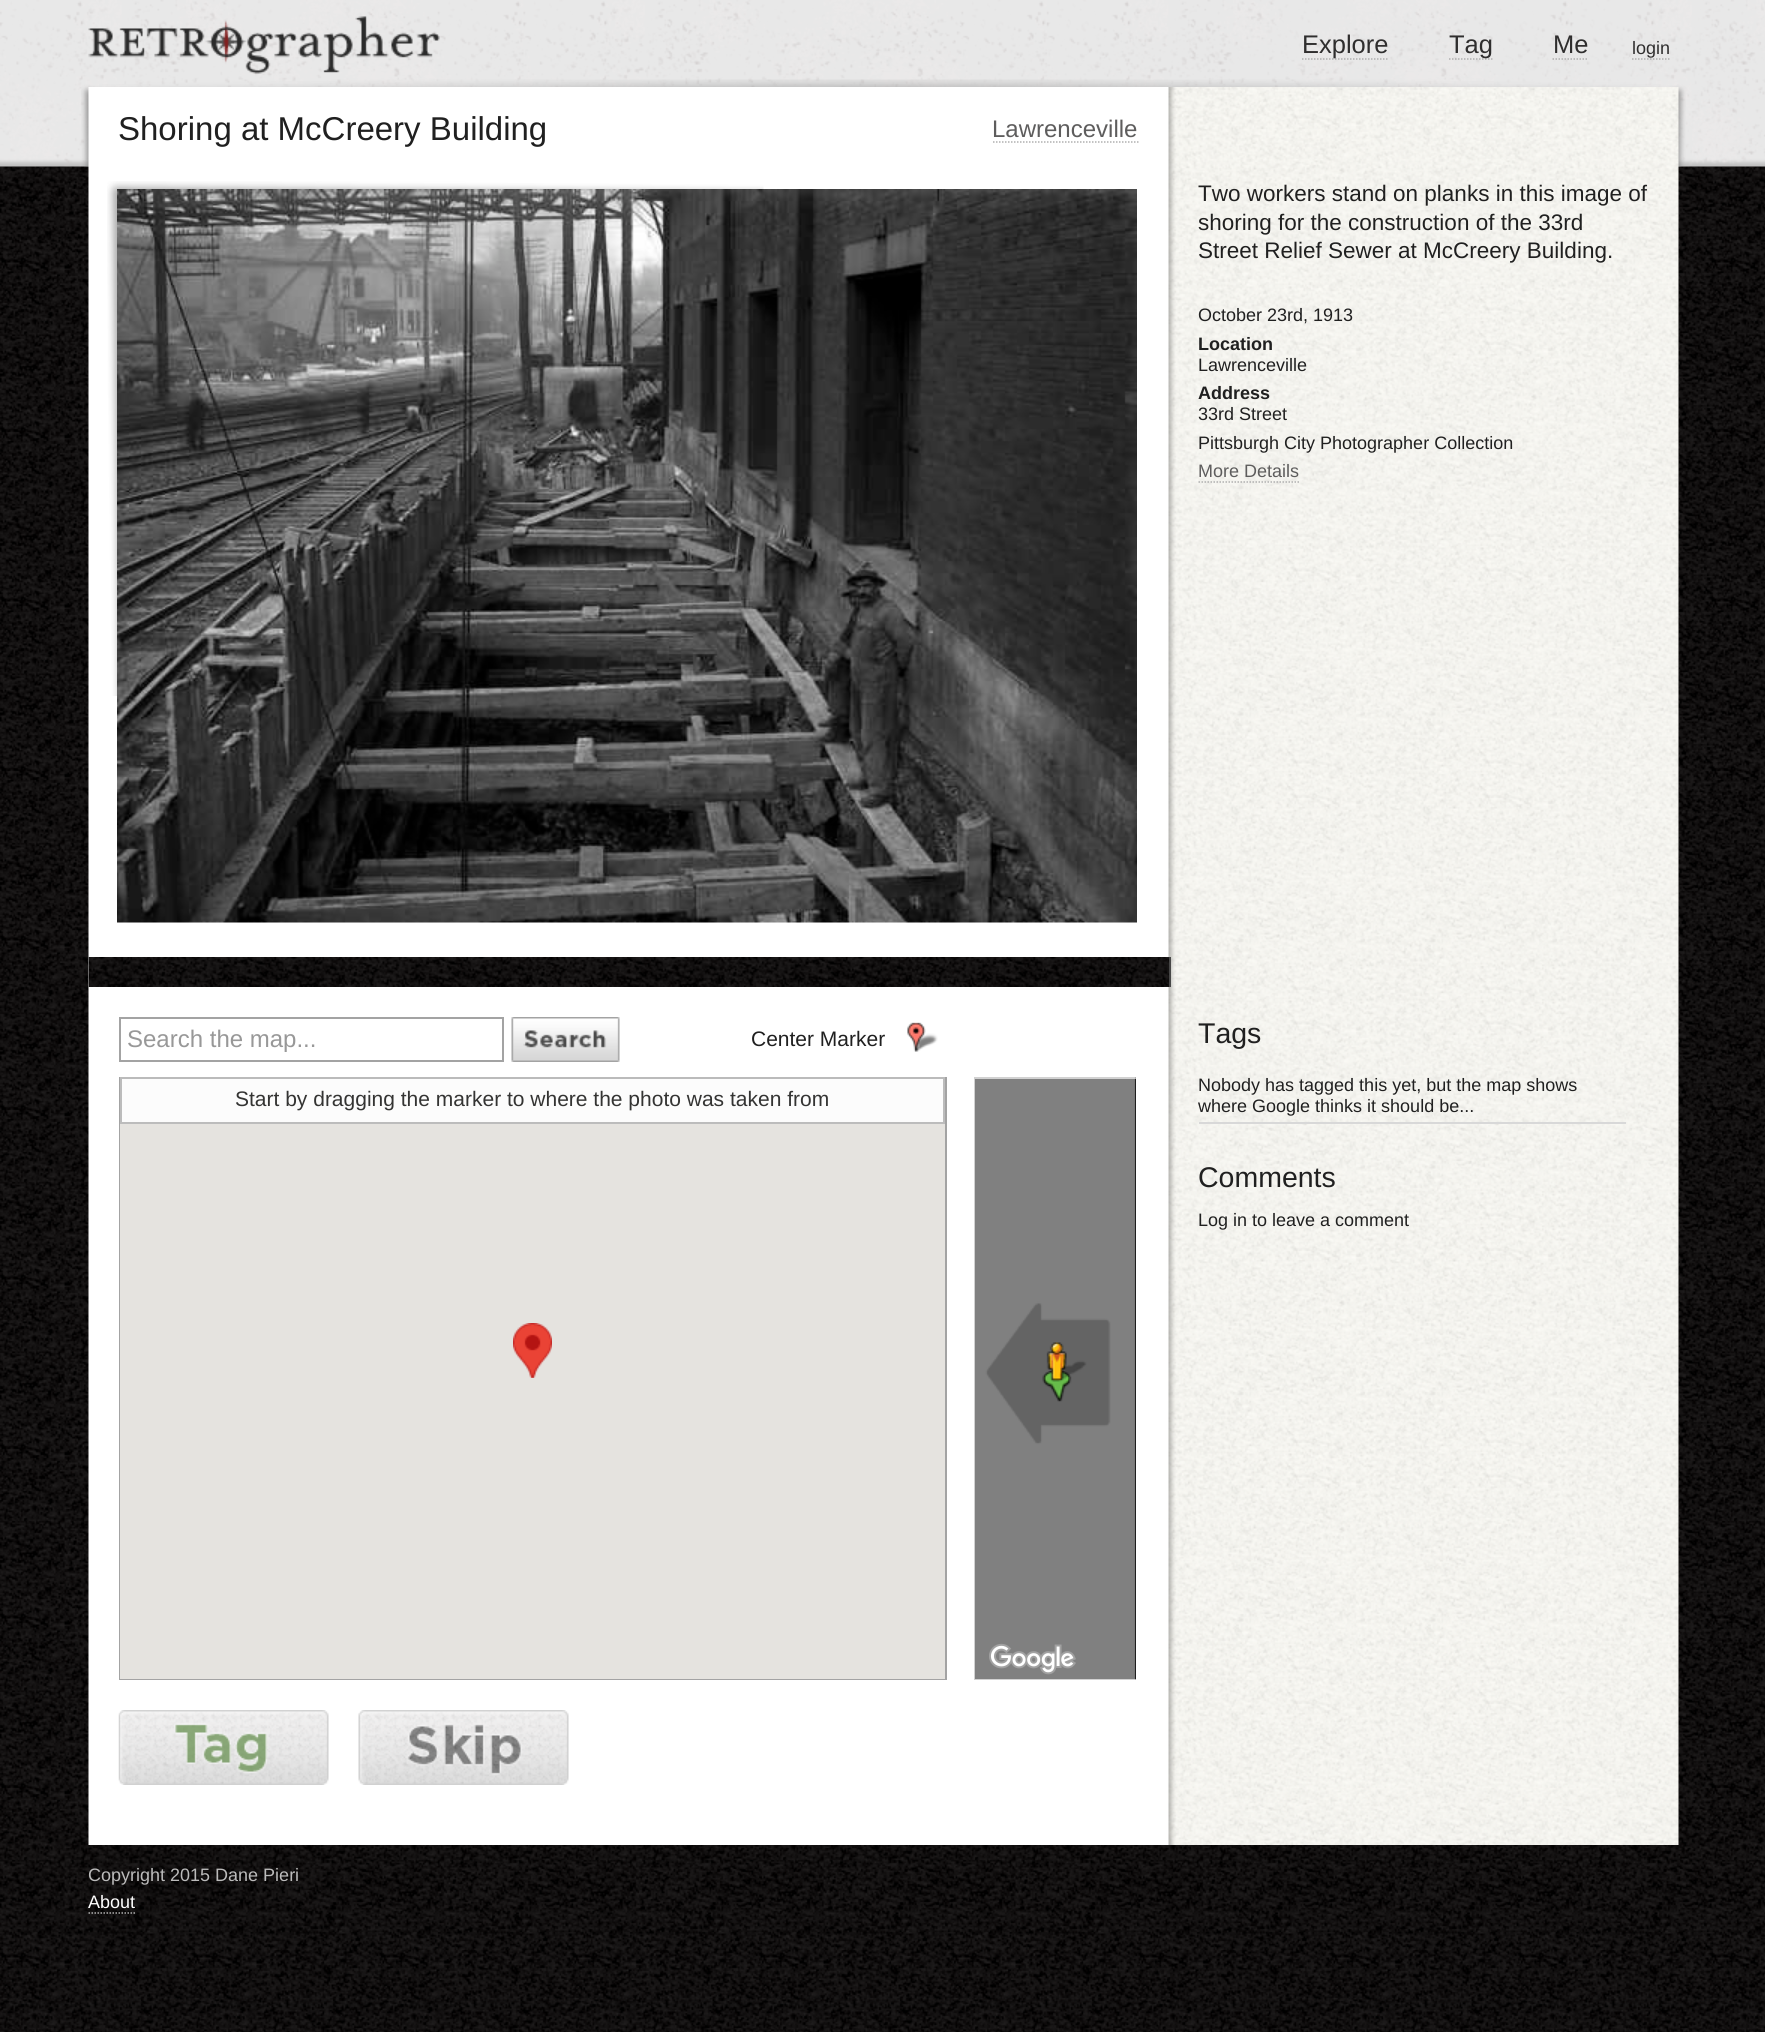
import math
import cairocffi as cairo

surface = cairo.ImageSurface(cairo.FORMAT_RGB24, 1765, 2032)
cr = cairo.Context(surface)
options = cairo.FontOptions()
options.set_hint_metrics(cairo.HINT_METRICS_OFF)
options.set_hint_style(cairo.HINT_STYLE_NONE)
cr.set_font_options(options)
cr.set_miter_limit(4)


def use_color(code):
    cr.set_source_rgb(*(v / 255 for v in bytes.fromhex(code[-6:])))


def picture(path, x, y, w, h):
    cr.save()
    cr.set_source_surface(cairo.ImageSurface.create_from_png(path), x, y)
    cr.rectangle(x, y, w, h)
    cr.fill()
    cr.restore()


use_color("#ffffff")
cr.paint()
picture("img1.png", 0, 166, 1765, 1866)
picture("img2.png", 0, 0, 1765, 167)
picture("img3.png", 88, 16, 352, 58)
cr.new_path()
cr.move_to(1302, 59)
cr.line_to(1389, 59)
use_color("#afafaf")
cr.set_line_width(1.5)
cr.set_dash([1.5, 1.5])
cr.stroke()
cr.select_font_face("Liberation Sans")
cr.set_font_size(25.5)
use_color("#2f2e2e")
cr.move_to(1302, 53)
cr.show_text("Explore")
cr.new_path()
cr.move_to(1449, 59)
cr.line_to(1492.5, 59)
use_color("#afafaf")
cr.stroke()
use_color("#2f2e2e")
cr.move_to(1449, 53)
cr.show_text("Tag")
cr.move_to(1553, 53)
cr.show_text("Me")
cr.new_path()
cr.move_to(1552.5, 59)
cr.line_to(1588.5, 59)
use_color("#afafaf")
cr.stroke()
cr.set_font_size(18)
use_color("#2f2e2e")
cr.move_to(1632, 54)
cr.show_text("login")
cr.new_path()
cr.move_to(1632, 59)
cr.line_to(1671, 59)
use_color("#afafaf")
cr.stroke()
picture("img4.png", 81, 79, 1605, 88)
picture("img5.png", 88, 87, 1591, 1758)
cr.set_font_size(33)
use_color("#202020")
cr.move_to(118, 140)
cr.show_text("Shoring at McCreery Building")
cr.set_font_size(24)
use_color("#5e5d5d")
cr.move_to(992, 137)
cr.show_text("Lawrenceville")
cr.new_path()
cr.move_to(993, 142)
cr.line_to(1138.5, 142)
use_color("#afafaf")
cr.stroke()
picture("img6.png", 107, 181, 657, 515)
picture("img7.png", 117, 189, 1020, 734)
cr.set_font_size(22.5)
use_color("#202020")
cr.move_to(1198, 201)
cr.show_text("Two workers stand on planks in this image of")
cr.move_to(1198, 230)
cr.show_text("shoring for the construction of the 33rd")
cr.move_to(1198, 258)
cr.show_text("Street Relief Sewer at McCreery Building.")
cr.set_font_size(18)
cr.move_to(1198, 321)
cr.show_text("October 23rd, 1913")
cr.select_font_face("Liberation Sans", cairo.FONT_SLANT_NORMAL, cairo.FONT_WEIGHT_BOLD)
cr.move_to(1198, 350)
cr.show_text("Location")
cr.select_font_face("Liberation Sans")
cr.move_to(1198, 371)
cr.show_text("Lawrenceville")
cr.select_font_face("Liberation Sans", cairo.FONT_SLANT_NORMAL, cairo.FONT_WEIGHT_BOLD)
cr.move_to(1198, 399)
cr.show_text("Address")
cr.select_font_face("Liberation Sans")
cr.move_to(1198, 420)
cr.show_text("33rd Street")
cr.move_to(1198, 449)
cr.show_text("Pittsburgh City Photographer Collection")
use_color("#5e5d5d")
cr.move_to(1198, 477)
cr.show_text("More Details")
cr.new_path()
cr.move_to(1198.5, 482)
cr.line_to(1299, 482)
use_color("#afafaf")
cr.stroke()
picture("img8.png", 88, 957, 1081, 30)
use_color("#474747")
cr.rectangle(1169, 957, 2, 30)
cr.fill()
cr.rectangle(120, 1018, 383, 43)
use_color("#a3a3a3")
cr.set_line_width(2)
cr.set_dash([])
cr.stroke()
cr.set_font_size(24)
use_color("#989898")
cr.move_to(127, 1047)
cr.show_text("Search the map...")
picture("img9.png", 511, 1017, 109, 45)
picture("img10.png", 907, 1022, 31, 30)
cr.set_font_size(21)
use_color("#202020")
cr.move_to(751, 1046)
cr.show_text("Center Marker")
cr.rectangle(120, 1078, 826, 601)
use_color("#a3a3a3")
cr.stroke()
use_color("#e5e3df")
cr.rectangle(120, 1079, 825, 600)
cr.fill()
picture("img11.png", 513, 1323, 39, 55)
use_color("#d8d8d8")
cr.rectangle(1199, 1122, 427, 2)
cr.fill()
cr.set_font_size(18)
use_color("#202020")
cr.move_to(1198, 1091)
cr.show_text("Nobody has tagged this yet, but the map shows")
cr.save()
cr.rectangle(119, 1077, 1017, 603)
cr.clip()
cr.rectangle(975, 1078, 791, 601)
use_color("#a3a3a3")
cr.stroke()
cr.restore()
use_color("#000000")
cr.rectangle(975, 1079, 161, 600)
cr.fill()
picture("img12.png", 989, 1643, 87, 32)
cr.set_source_rgba(1, 1, 1, 0.9)
cr.rectangle(120, 1077, 825, 47)
cr.fill()
cr.rectangle(121, 1078, 823, 45)
cr.set_source_rgba(0.71, 0.71, 0.71, 0.9)
cr.stroke()
cr.set_font_size(21)
use_color("#343433")
cr.move_to(235, 1106)
cr.show_text("Start by dragging the marker to where the photo was taken from")
picture("img13.png", 974, 1077, 162, 603)
picture("img14.png", 118, 1710, 211, 75)
picture("img15.png", 358, 1710, 211, 75)
cr.set_font_size(28.5)
use_color("#202020")
cr.move_to(1198, 1043)
cr.show_text("Tags")
cr.set_font_size(18)
cr.move_to(1198, 1112)
cr.show_text("where Google thinks it should be...")
cr.set_font_size(28.5)
cr.move_to(1198, 1187)
cr.show_text("Comments")
cr.set_font_size(18)
cr.move_to(1198, 1226)
cr.show_text("Log in to leave a comment")
use_color("#bbbbbb")
cr.move_to(88, 1881)
cr.show_text("Copyright 2015 Dane Pieri")
use_color("#ffffff")
cr.move_to(88, 1908)
cr.show_text("About")
cr.new_path()
cr.move_to(88.5, 1913)
cr.line_to(135, 1913)
use_color("#afafaf")
cr.set_line_width(1.5)
cr.set_dash([1.5, 1.5])
cr.stroke()
surface.write_to_png("result.png")
